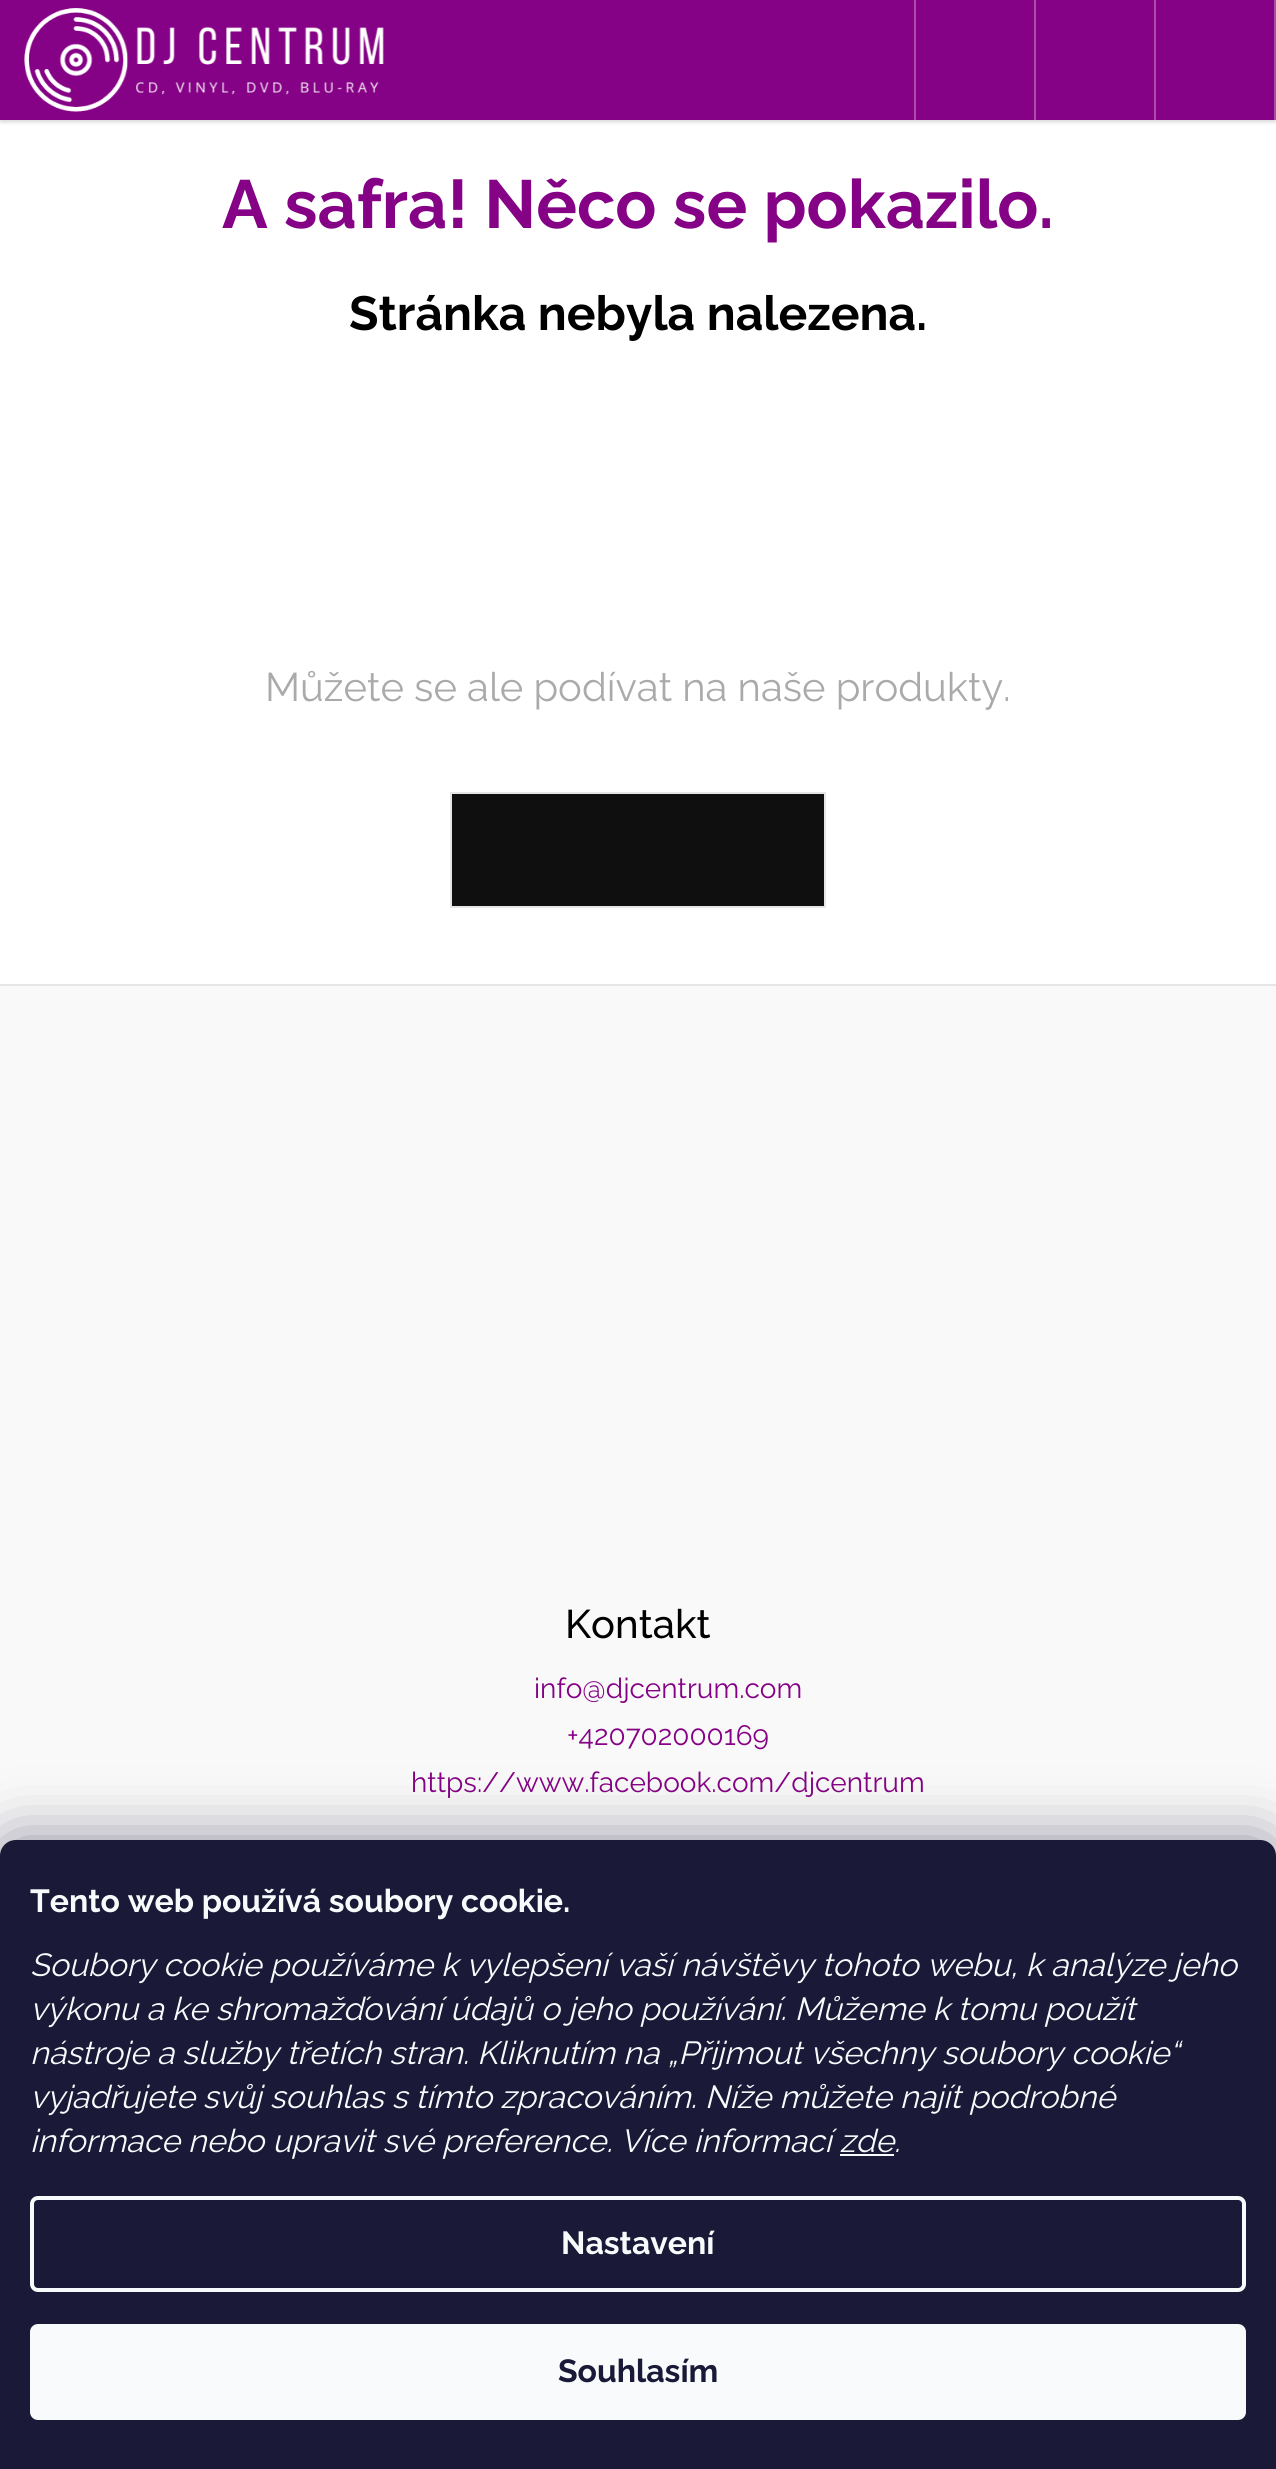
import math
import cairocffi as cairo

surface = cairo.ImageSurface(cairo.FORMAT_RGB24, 1276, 2469)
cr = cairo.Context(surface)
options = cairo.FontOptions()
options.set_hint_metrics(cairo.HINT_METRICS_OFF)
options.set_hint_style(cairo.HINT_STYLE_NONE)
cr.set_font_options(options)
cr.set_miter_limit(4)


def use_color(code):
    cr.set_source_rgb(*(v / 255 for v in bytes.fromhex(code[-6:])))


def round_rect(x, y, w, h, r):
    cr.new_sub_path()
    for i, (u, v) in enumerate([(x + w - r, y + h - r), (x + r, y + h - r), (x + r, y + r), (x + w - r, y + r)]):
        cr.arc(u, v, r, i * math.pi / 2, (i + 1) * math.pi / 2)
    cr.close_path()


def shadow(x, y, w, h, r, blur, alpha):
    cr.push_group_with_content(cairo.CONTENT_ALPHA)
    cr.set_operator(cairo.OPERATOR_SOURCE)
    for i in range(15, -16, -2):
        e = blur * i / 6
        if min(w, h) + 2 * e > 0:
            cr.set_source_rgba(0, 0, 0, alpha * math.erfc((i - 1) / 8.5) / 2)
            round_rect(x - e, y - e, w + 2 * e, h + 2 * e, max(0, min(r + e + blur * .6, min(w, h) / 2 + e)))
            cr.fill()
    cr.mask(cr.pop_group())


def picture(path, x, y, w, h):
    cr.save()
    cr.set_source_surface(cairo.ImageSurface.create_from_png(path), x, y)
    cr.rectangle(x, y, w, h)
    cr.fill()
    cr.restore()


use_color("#ffffff")
cr.paint()
use_color("#000000")
shadow(0, 2, 1276, 120, 0, 2, 0.16)
use_color("#850185")
cr.rectangle(0, 0, 1274, 120)
cr.fill()
picture("img1.png", 24, 8, 360, 104)
use_color("#aa4daa")
cr.rectangle(1274, 0, 2, 120)
cr.fill()
cr.rectangle(914, 0, 2, 120)
cr.fill()
cr.rectangle(1034, 0, 2, 120)
cr.fill()
cr.rectangle(1154, 0, 2, 120)
cr.fill()
cr.select_font_face("Raleway", cairo.FONT_SLANT_NORMAL, cairo.FONT_WEIGHT_BOLD)
cr.set_font_size(68)
use_color("#850185")
cr.move_to(222, 228)
cr.show_text("A safra! Něco se pokazilo.")
cr.set_font_size(48)
use_color("#000000")
cr.move_to(349, 330)
cr.show_text("Stránka nebyla nalezena.")
cr.select_font_face("Raleway")
cr.set_font_size(40)
use_color("#aaaaaa")
cr.move_to(265, 701)
cr.show_text("Můžete se ale podívat na naše produkty.")
use_color("#0f0f0f")
cr.rectangle(451, 793, 374, 114)
cr.fill_preserve()
use_color("#e6e6e6")
cr.stroke()
use_color("#f9f9f9")
cr.rectangle(0, 986, 1276, 870)
cr.fill()
use_color("#e6e6e6")
cr.rectangle(0, 984, 1276, 2)
cr.fill()
cr.select_font_face("Raleway Medium")
use_color("#000000")
cr.move_to(565, 1638)
cr.show_text("Kontakt")
cr.select_font_face("Raleway")
cr.set_font_size(28)
use_color("#850185")
cr.move_to(534, 1698)
cr.show_text("info@djcentrum.com")
cr.move_to(567, 1745)
cr.show_text("+420702000169")
cr.move_to(411, 1792)
cr.show_text("https://www.facebook.com/djcentrum")
use_color("#1b1939")
shadow(0, 1840, 1276, 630, 16, 30, 0.5)
use_color("#1a1937")
cr.new_path()
cr.move_to(16, 1840)
cr.line_to(1260, 1840)
cr.curve_to(1269, 1840, 1276, 1847, 1276, 1856)
cr.line_to(1276, 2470)
cr.line_to(0, 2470)
cr.line_to(0, 1856)
cr.curve_to(0, 1847, 7, 1840, 16, 1840)
cr.close_path()
cr.fill()
cr.select_font_face("Raleway", cairo.FONT_SLANT_NORMAL, cairo.FONT_WEIGHT_BOLD)
cr.set_font_size(32)
use_color("#f8fafb")
cr.move_to(30, 1912)
cr.show_text("Tento web používá soubory cookie.")
cr.select_font_face("Raleway", cairo.FONT_SLANT_ITALIC)
cr.move_to(30, 1976)
cr.show_text("Soubory cookie používáme k vylepšení vaší návštěvy tohoto webu, k analýze jeho")
cr.move_to(30, 2020)
cr.show_text("výkonu a ke shromažďování údajů o jeho používání. Můžeme k tomu použít")
cr.move_to(30, 2064)
cr.show_text("nástroje a služby třetích stran. Kliknutím na „Přijmout všechny soubory cookie“")
cr.move_to(30, 2108)
cr.show_text("vyjadřujete svůj souhlas s tímto zpracováním. Níže můžete najít podrobné")
cr.move_to(30, 2152)
cr.show_text("informace nebo upravit své preference. Více informací zde.")
cr.rectangle(840, 2154, 54, 2)
cr.fill()
round_rect(32, 2198, 1212, 92, 6)
cr.set_line_width(4)
cr.stroke()
cr.select_font_face("Raleway", cairo.FONT_SLANT_NORMAL, cairo.FONT_WEIGHT_BOLD)
cr.move_to(561, 2254)
cr.show_text("Nastavení")
round_rect(30, 2324, 1216, 96, 8)
cr.fill()
use_color("#1a1937")
cr.move_to(558, 2382)
cr.show_text("Souhlasím")
surface.write_to_png("result.png")
